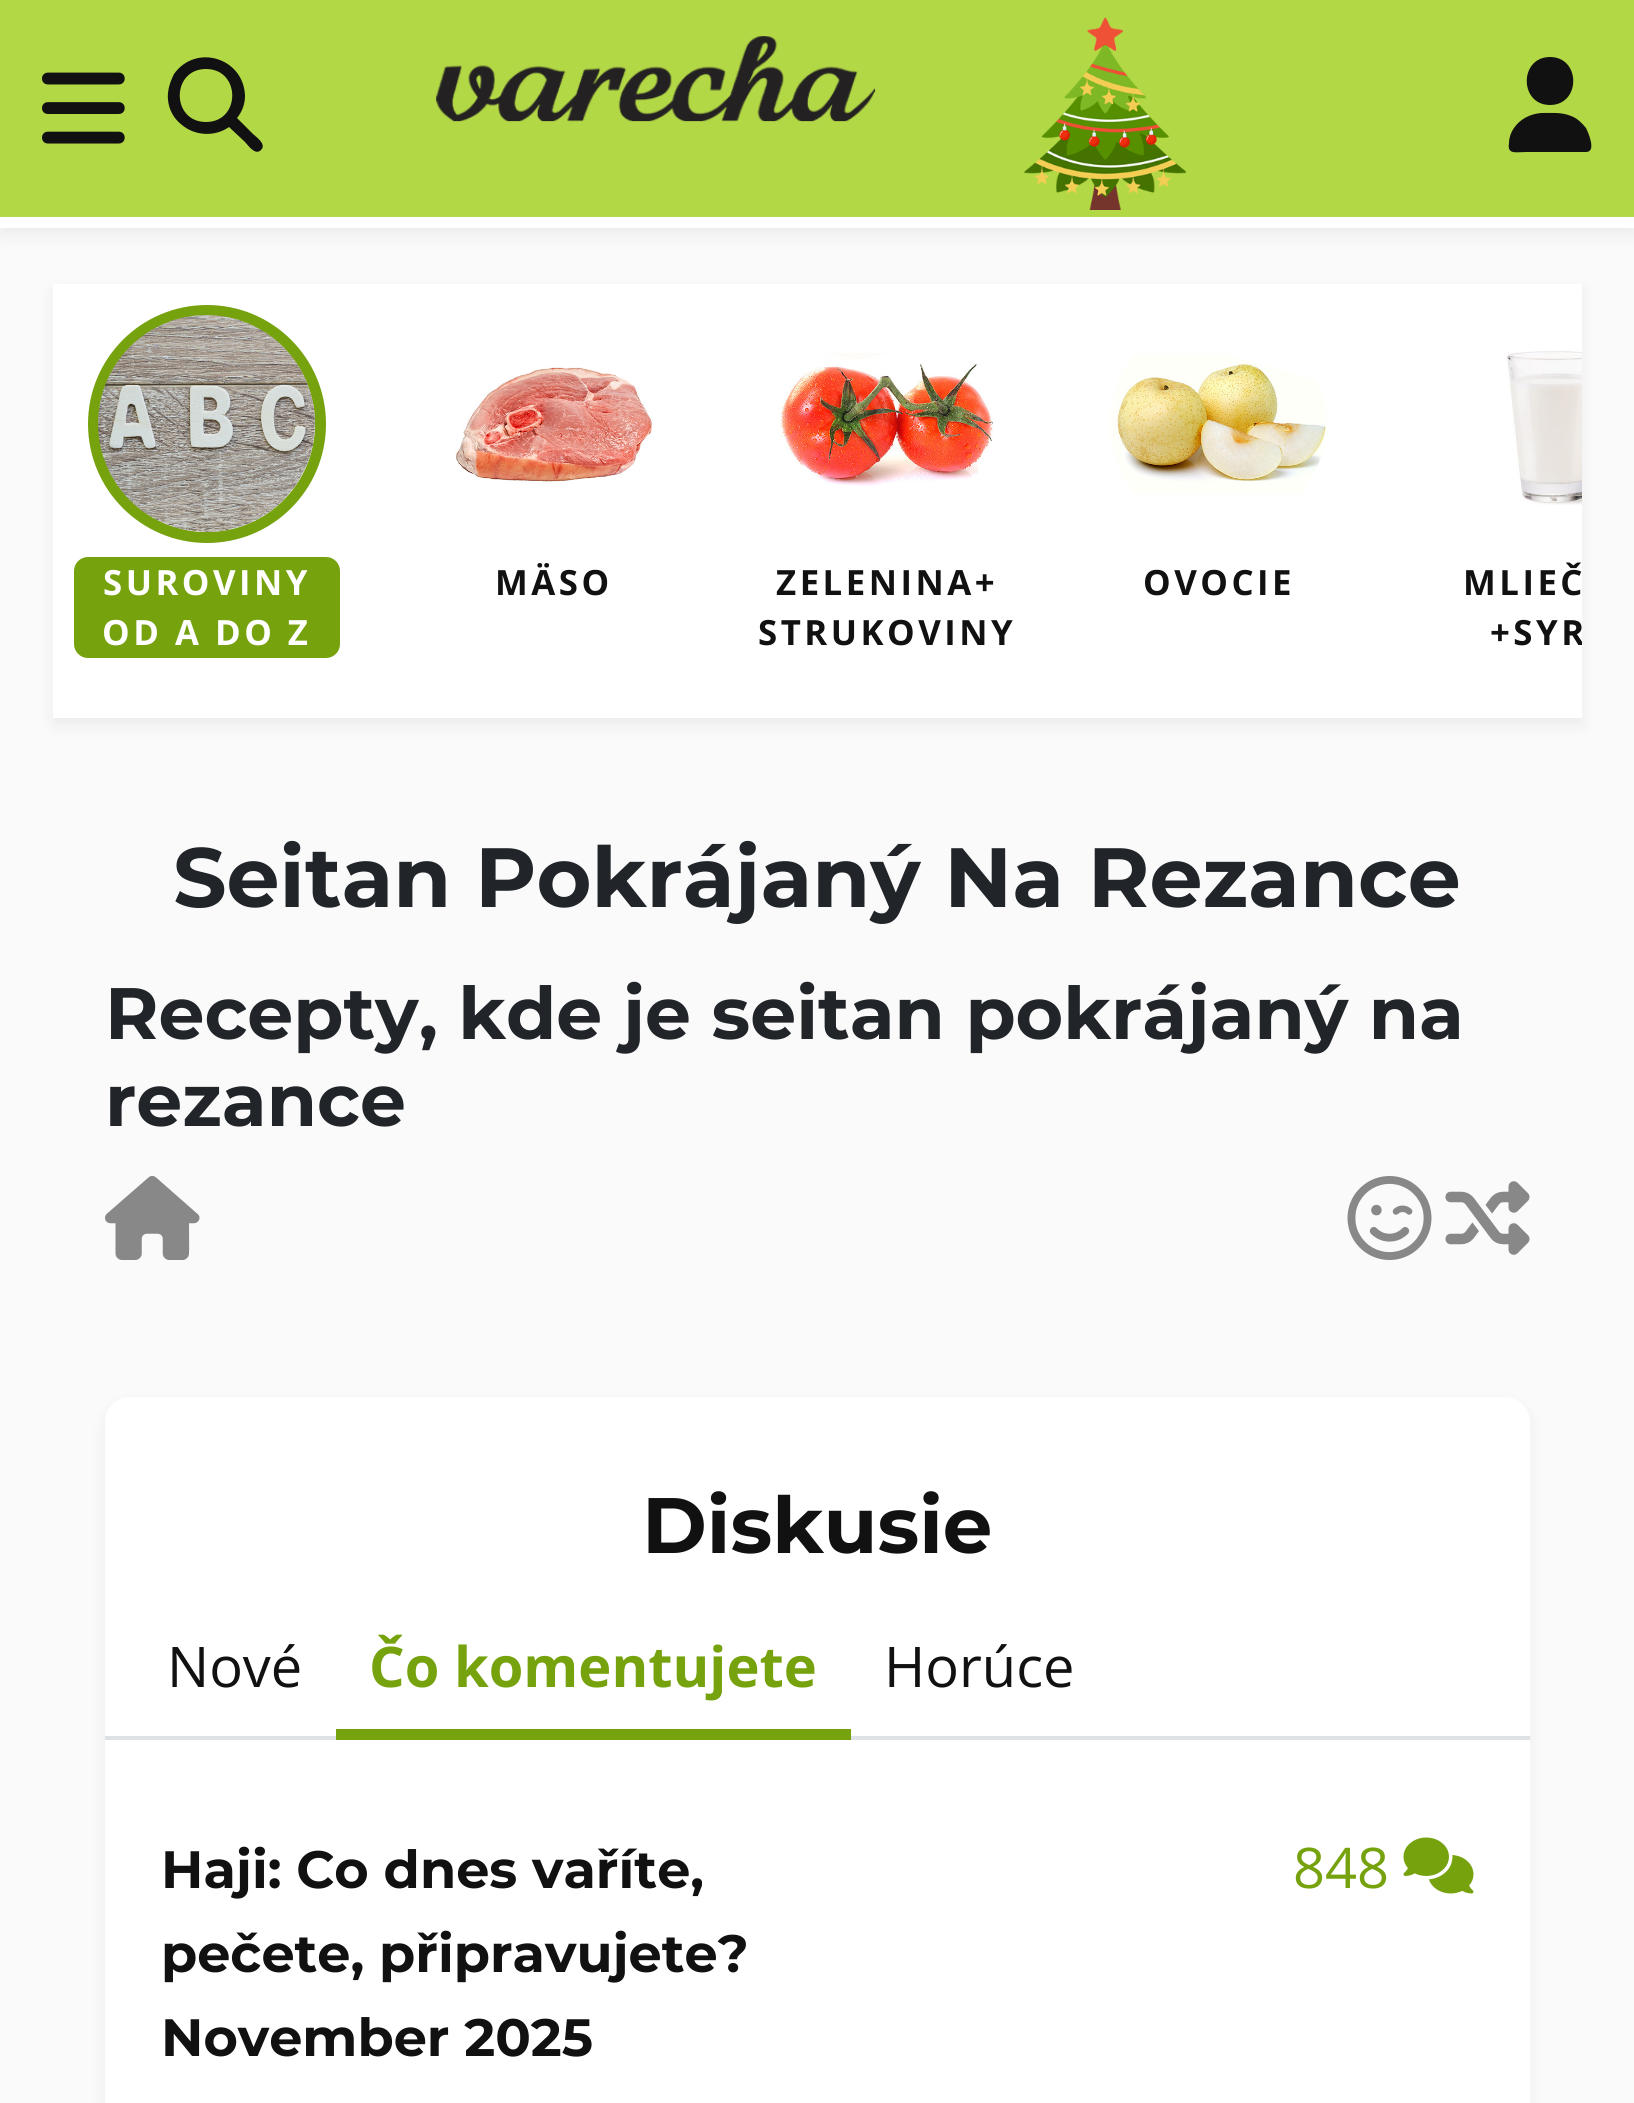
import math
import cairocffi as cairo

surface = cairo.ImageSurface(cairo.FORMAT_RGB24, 1634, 2103)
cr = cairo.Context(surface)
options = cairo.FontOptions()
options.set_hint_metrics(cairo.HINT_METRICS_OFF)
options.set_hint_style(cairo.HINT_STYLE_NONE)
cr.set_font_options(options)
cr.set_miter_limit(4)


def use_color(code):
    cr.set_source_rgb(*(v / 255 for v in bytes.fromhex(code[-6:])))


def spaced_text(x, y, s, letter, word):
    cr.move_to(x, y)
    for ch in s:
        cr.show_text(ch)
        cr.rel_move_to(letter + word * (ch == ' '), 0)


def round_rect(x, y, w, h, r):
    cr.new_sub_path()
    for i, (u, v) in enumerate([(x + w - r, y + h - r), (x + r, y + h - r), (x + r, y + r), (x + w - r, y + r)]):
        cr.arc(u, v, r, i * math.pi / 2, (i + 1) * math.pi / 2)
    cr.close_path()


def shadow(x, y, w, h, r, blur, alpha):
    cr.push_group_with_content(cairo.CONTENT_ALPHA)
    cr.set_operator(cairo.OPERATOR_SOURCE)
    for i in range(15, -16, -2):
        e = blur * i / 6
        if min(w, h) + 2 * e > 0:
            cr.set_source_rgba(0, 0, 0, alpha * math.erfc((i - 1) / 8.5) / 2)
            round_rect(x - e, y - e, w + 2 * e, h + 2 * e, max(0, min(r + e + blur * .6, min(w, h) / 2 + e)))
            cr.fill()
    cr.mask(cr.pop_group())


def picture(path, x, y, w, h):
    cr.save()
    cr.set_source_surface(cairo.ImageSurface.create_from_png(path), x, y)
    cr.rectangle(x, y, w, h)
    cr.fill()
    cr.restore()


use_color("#fafafa")
cr.paint()
use_color("#cccccc")
shadow(0, 7, 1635, 228, 0, 7, 0.32)
use_color("#b3d846")
cr.rectangle(0, 0, 1634, 217)
cr.fill()
use_color("#ffffff")
cr.rectangle(0, 217, 1634, 11)
cr.fill()
picture("img1.png", 42, 72, 83, 72)
use_color("#111111")
cr.new_path()
cr.move_to(245, 96)
cr.curve_to(245, 104, 242, 112, 237, 118)
cr.line_to(253, 134)
cr.curve_to(256, 137, 267, 144, 261, 150)
cr.curve_to(255, 156, 248, 145, 245, 142)
cr.line_to(229, 127)
cr.curve_to(215, 137, 195, 136, 182, 125)
cr.curve_to(174, 119, 169, 110, 168, 100)
cr.curve_to(167, 91, 170, 82, 174, 74)
cr.curve_to(196, 43, 244, 58, 245, 96)
cr.close_path()
cr.move_to(206, 122)
cr.curve_to(241, 122, 241, 69, 206, 69)
cr.curve_to(171, 69, 171, 122, 206, 122)
cr.close_path()
cr.fill()
picture("img2.png", 436, 36, 440, 86)
picture("img3.png", 1024, 17, 162, 193)
cr.new_path()
cr.move_to(1550, 105)
cr.curve_to(1581, 105, 1581, 57, 1550, 57)
cr.curve_to(1519, 57, 1519, 105, 1550, 105)
cr.close_path()
cr.move_to(1541, 113)
cr.curve_to(1530, 114, 1520, 119, 1514, 128)
cr.curve_to(1511, 132, 1509, 138, 1509, 143)
cr.curve_to(1507, 155, 1516, 152, 1526, 152)
cr.line_to(1586, 152)
cr.curve_to(1597, 152, 1588, 132, 1586, 128)
cr.curve_to(1582, 123, 1577, 118, 1571, 116)
cr.curve_to(1562, 112, 1551, 113, 1541, 113)
cr.close_path()
cr.fill()
use_color("#cccccc")
shadow(53, 291, 1529, 434, 0, 7, 0.32)
use_color("#ffffff")
cr.rectangle(53, 284, 1529, 434)
cr.fill()
cr.arc(207, 424, 113.5, 0, 2 * math.pi)
use_color("#76a20e")
cr.set_line_width(11)
cr.stroke()
picture("img4.png", 98, 315, 217, 217)
round_rect(74, 557, 266, 101, 14)
cr.fill()
cr.select_font_face("Open Sans", cairo.FONT_SLANT_NORMAL, cairo.FONT_WEIGHT_BOLD)
cr.set_font_size(34.75)
use_color("#ffffff")
spaced_text(103, 595, "SUROVINY", 3.5, 0)
spaced_text(102, 645, "OD A DO Z", 3.5, 0)
picture("img5.png", 454, 367, 199, 117)
use_color("#111111")
spaced_text(495, 595, "MÄSO", 3.5, 0)
picture("img6.png", 780, 353, 214, 133)
spaced_text(776, 595, "ZELENINA+", 3.5, 0)
spaced_text(758, 645, "STRUKOVINY", 3.5, 0)
picture("img7.png", 1110, 354, 216, 140)
spaced_text(1143, 595, "OVOCIE", 3.5, 0)
picture("img8.png", 1507, 351, 75, 154)
spaced_text(1463, 595, "MLIEČ", 3.5, 0)
cr.save()
cr.rectangle(53, 284, 1529, 420)
cr.clip()
spaced_text(1490, 645, "+SYR", 3.5, 0)
cr.restore()
cr.select_font_face("Montserrat", cairo.FONT_SLANT_NORMAL, cairo.FONT_WEIGHT_BOLD)
cr.set_font_size(84)
use_color("#212529")
cr.move_to(173, 907)
cr.show_text("Seitan Pokrájaný Na Rezance")
cr.set_font_size(72.75)
cr.move_to(105, 1039)
cr.show_text("Recepty, kde je seitan pokrájaný na")
cr.move_to(105, 1126)
cr.show_text("rezance")
picture("img9.png", 105, 1176, 95, 84)
picture("img10.png", 1347, 1176, 85, 84)
picture("img11.png", 1445, 1181, 85, 74)
use_color("#cccccc")
shadow(105, 1404, 1425, 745, 25, 7, 0.32)
use_color("#ffffff")
round_rect(105, 1397, 1425, 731, 25)
cr.fill()
cr.set_font_size(78.5)
use_color("#111111")
cr.move_to(642, 1553)
cr.show_text("Diskusie")
use_color("#dee2e6")
cr.rectangle(105, 1736, 1425, 4)
cr.fill()
cr.select_font_face("Open Sans")
cr.set_font_size(56)
use_color("#111111")
cr.move_to(167, 1687)
cr.show_text("Nové")
use_color("#ffffff")
cr.new_path()
cr.move_to(350, 1603)
cr.line_to(837, 1603)
cr.curve_to(844.5, 1603, 851, 1609.5, 851, 1617)
cr.line_to(851, 1740)
cr.line_to(336, 1740)
cr.line_to(336, 1617)
cr.curve_to(336, 1609.5, 342.5, 1603, 350, 1603)
cr.close_path()
cr.fill()
use_color("#76a20e")
cr.rectangle(336, 1729, 515, 11)
cr.fill()
cr.select_font_face("Open Sans", cairo.FONT_SLANT_NORMAL, cairo.FONT_WEIGHT_BOLD)
cr.move_to(369, 1687)
cr.show_text("Čo komentujete")
cr.select_font_face("Open Sans")
use_color("#111111")
cr.move_to(884, 1687)
cr.show_text("Horúce")
cr.select_font_face("Montserrat", cairo.FONT_SLANT_NORMAL, cairo.FONT_WEIGHT_BOLD)
cr.set_font_size(52.5)
cr.move_to(161, 1888)
cr.show_text("Haji: Co dnes vaříte,")
cr.move_to(161, 1972)
cr.show_text("pečete, připravujete?")
cr.move_to(161, 2056)
cr.show_text("November 2025")
cr.select_font_face("Open Sans")
cr.set_font_size(56)
use_color("#76a20e")
cr.move_to(1293, 1888)
cr.show_text("848")
picture("img12.png", 1403, 1837, 71, 57)
surface.write_to_png("result.png")
